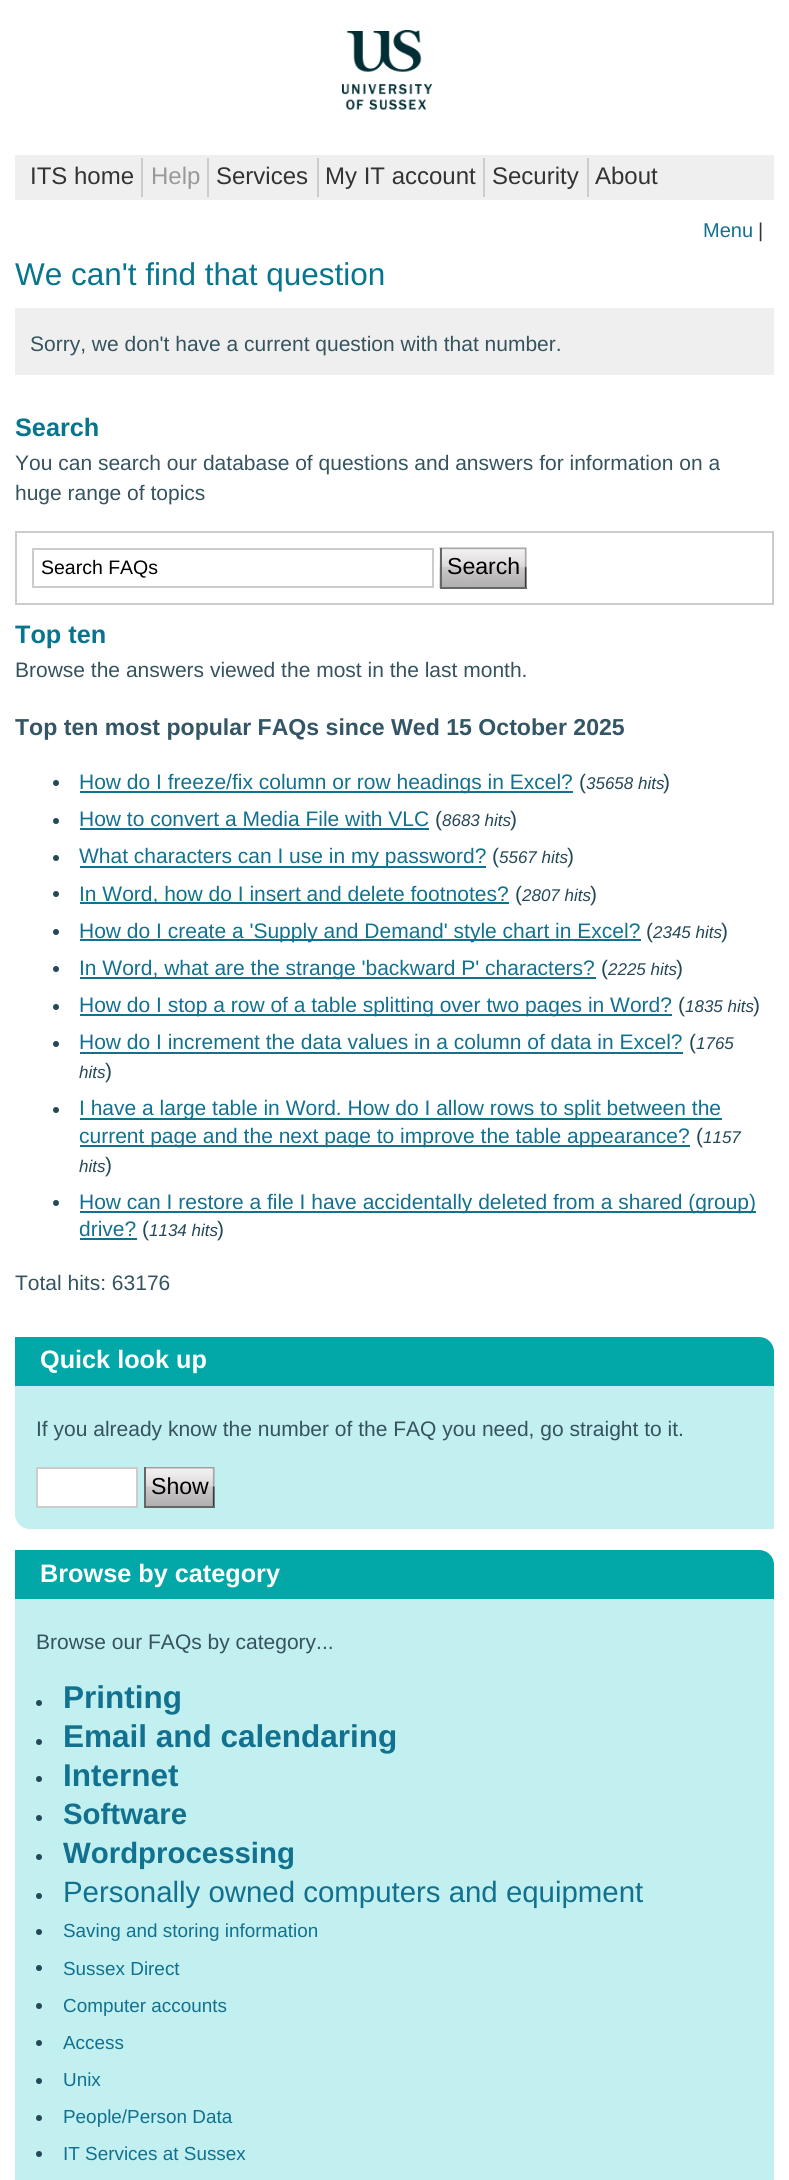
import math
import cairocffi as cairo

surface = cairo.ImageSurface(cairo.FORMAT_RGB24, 789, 2180)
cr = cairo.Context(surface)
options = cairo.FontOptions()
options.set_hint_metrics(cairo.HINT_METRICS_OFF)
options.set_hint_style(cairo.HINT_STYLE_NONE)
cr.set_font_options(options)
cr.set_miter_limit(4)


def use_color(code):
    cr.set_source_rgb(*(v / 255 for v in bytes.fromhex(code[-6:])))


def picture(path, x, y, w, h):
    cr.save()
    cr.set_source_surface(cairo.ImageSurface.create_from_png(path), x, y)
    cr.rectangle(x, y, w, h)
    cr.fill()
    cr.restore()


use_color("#ffffff")
cr.paint()
picture("img1.png", 342, 30, 90, 80)
use_color("#efefef")
cr.rectangle(15, 155, 759, 45)
cr.fill()
cr.select_font_face("Liberation Sans")
cr.set_font_size(24)
use_color("#333333")
cr.move_to(30, 184)
cr.show_text("ITS home")
use_color("#999999")
cr.move_to(151, 184)
cr.show_text("Help")
use_color("#cccccc")
cr.rectangle(141, 158, 2, 39)
cr.fill()
use_color("#333333")
cr.move_to(216, 184)
cr.show_text("Services")
use_color("#cccccc")
cr.rectangle(207, 158, 2, 39)
cr.fill()
use_color("#333333")
cr.move_to(325, 184)
cr.show_text("My IT account")
use_color("#cccccc")
cr.rectangle(317, 158, 2, 39)
cr.fill()
use_color("#333333")
cr.move_to(492, 184)
cr.show_text("Security")
use_color("#cccccc")
cr.rectangle(483, 158, 2, 39)
cr.fill()
use_color("#333333")
cr.move_to(595, 184)
cr.show_text("About")
use_color("#cccccc")
cr.rectangle(587, 158, 2, 39)
cr.fill()
cr.set_font_size(20)
use_color("#11718f")
cr.move_to(703, 237)
cr.show_text("Menu")
use_color("#333333")
cr.move_to(758, 237)
cr.show_text("|")
cr.set_font_size(31.5)
use_color("#08758f")
cr.move_to(15, 285)
cr.show_text("We can't find that question")
use_color("#efefef")
cr.rectangle(15, 308, 759, 67)
cr.fill()
cr.set_font_size(21)
use_color("#35535f")
cr.move_to(30, 351)
cr.show_text("Sorry, we don't have a current question with that number.")
cr.select_font_face("Liberation Sans", cairo.FONT_SLANT_NORMAL, cairo.FONT_WEIGHT_BOLD)
cr.set_font_size(25.25)
use_color("#08758f")
cr.move_to(15, 436)
cr.show_text("Search")
cr.select_font_face("Liberation Sans")
cr.set_font_size(21)
use_color("#35535f")
cr.move_to(15, 470)
cr.show_text("You can search our database of questions and answers for information on a")
cr.move_to(15, 500)
cr.show_text("huge range of topics")
cr.rectangle(16, 532, 757, 72)
use_color("#cccccc")
cr.stroke()
cr.rectangle(33, 549, 400, 38)
cr.stroke()
cr.set_font_size(19.5)
use_color("#000000")
cr.move_to(41, 574)
cr.show_text("Search FAQs")
picture("img2.png", 439, 547, 88, 41)
use_color("#666666")
cr.rectangle(440, 587, 87, 2)
cr.fill()
cr.rectangle(440, 548, 2, 40)
cr.fill()
cr.set_font_size(23.1)
use_color("#000000")
cr.move_to(447, 574)
cr.show_text("Search")
cr.select_font_face("Liberation Sans", cairo.FONT_SLANT_NORMAL, cairo.FONT_WEIGHT_BOLD)
cr.set_font_size(25.25)
use_color("#08758f")
cr.move_to(15, 643)
cr.show_text("Top ten")
cr.select_font_face("Liberation Sans")
cr.set_font_size(21)
use_color("#35535f")
cr.move_to(15, 677)
cr.show_text("Browse the answers viewed the most in the last month.")
cr.select_font_face("Liberation Sans", cairo.FONT_SLANT_NORMAL, cairo.FONT_WEIGHT_BOLD)
cr.set_font_size(23.1)
use_color("#335566")
cr.move_to(15, 735)
cr.show_text("Top ten most popular FAQs since Wed 15 October 2025")
use_color("#244857")
cr.new_path()
cr.arc(56, 783, 3, 0, 2 * math.pi)
cr.fill()
use_color("#11718f")
cr.rectangle(80, 791, 493, 2)
cr.fill()
cr.select_font_face("Liberation Sans")
cr.set_font_size(21)
cr.move_to(79, 789)
cr.show_text("How do I freeze/fix column or row headings in Excel?")
use_color("#244857")
cr.move_to(579, 789)
cr.show_text("(")
cr.select_font_face("Liberation Sans", cairo.FONT_SLANT_ITALIC)
cr.set_font_size(17)
cr.move_to(586, 789)
cr.show_text("35658 hits")
cr.select_font_face("Liberation Sans")
cr.set_font_size(21)
cr.move_to(663, 789)
cr.show_text(")")
cr.new_path()
cr.arc(56, 821, 3, 0, 2 * math.pi)
cr.fill()
use_color("#11718f")
cr.move_to(79, 826)
cr.show_text("How to convert a Media File with VLC")
cr.rectangle(80, 828, 349, 2)
cr.fill()
use_color("#244857")
cr.move_to(435, 826)
cr.show_text("(")
cr.select_font_face("Liberation Sans", cairo.FONT_SLANT_ITALIC)
cr.set_font_size(17)
cr.move_to(442, 826)
cr.show_text("8683 hits")
cr.select_font_face("Liberation Sans")
cr.set_font_size(21)
cr.move_to(510, 826)
cr.show_text(")")
cr.new_path()
cr.arc(56, 858, 3, 0, 2 * math.pi)
cr.fill()
use_color("#11718f")
cr.rectangle(80, 866, 406, 2)
cr.fill()
cr.move_to(79, 863)
cr.show_text("What characters can I use in my password?")
use_color("#244857")
cr.move_to(492, 863)
cr.show_text("(")
cr.select_font_face("Liberation Sans", cairo.FONT_SLANT_ITALIC)
cr.set_font_size(17)
cr.move_to(499, 863)
cr.show_text("5567 hits")
cr.select_font_face("Liberation Sans")
cr.set_font_size(21)
cr.move_to(567, 863)
cr.show_text(")")
cr.new_path()
cr.arc(56, 894, 3, 0, 2 * math.pi)
cr.fill()
use_color("#11718f")
cr.rectangle(80, 902, 429, 2)
cr.fill()
cr.move_to(79, 901)
cr.show_text("In Word, how do I insert and delete footnotes?")
use_color("#244857")
cr.move_to(515, 901)
cr.show_text("(")
cr.select_font_face("Liberation Sans", cairo.FONT_SLANT_ITALIC)
cr.set_font_size(17)
cr.move_to(522, 901)
cr.show_text("2807 hits")
cr.select_font_face("Liberation Sans")
cr.set_font_size(21)
cr.move_to(590, 901)
cr.show_text(")")
cr.new_path()
cr.arc(56, 932, 3, 0, 2 * math.pi)
cr.fill()
use_color("#11718f")
cr.rectangle(80, 939, 561, 2)
cr.fill()
cr.move_to(79, 938)
cr.show_text("How do I create a 'Supply and Demand' style chart in Excel?")
use_color("#244857")
cr.move_to(646, 938)
cr.show_text("(")
cr.select_font_face("Liberation Sans", cairo.FONT_SLANT_ITALIC)
cr.set_font_size(17)
cr.move_to(653, 938)
cr.show_text("2345 hits")
cr.select_font_face("Liberation Sans")
cr.set_font_size(21)
cr.move_to(721, 938)
cr.show_text(")")
cr.new_path()
cr.arc(56, 969, 3, 0, 2 * math.pi)
cr.fill()
use_color("#11718f")
cr.rectangle(80, 977, 516, 2)
cr.fill()
cr.move_to(79, 975)
cr.show_text("In Word, what are the strange 'backward P' characters?")
use_color("#244857")
cr.move_to(601, 975)
cr.show_text("(")
cr.select_font_face("Liberation Sans", cairo.FONT_SLANT_ITALIC)
cr.set_font_size(17)
cr.move_to(608, 975)
cr.show_text("2225 hits")
cr.select_font_face("Liberation Sans")
cr.set_font_size(21)
cr.move_to(676, 975)
cr.show_text(")")
cr.new_path()
cr.arc(56, 1007, 3, 0, 2 * math.pi)
cr.fill()
use_color("#11718f")
cr.rectangle(80, 1014, 592, 2)
cr.fill()
cr.move_to(79, 1012)
cr.show_text("How do I stop a row of a table splitting over two pages in Word?")
use_color("#244857")
cr.move_to(678, 1012)
cr.show_text("(")
cr.select_font_face("Liberation Sans", cairo.FONT_SLANT_ITALIC)
cr.set_font_size(17)
cr.move_to(685, 1012)
cr.show_text("1835 hits")
cr.select_font_face("Liberation Sans")
cr.set_font_size(21)
cr.move_to(753, 1012)
cr.show_text(")")
cr.new_path()
cr.arc(56, 1044, 3, 0, 2 * math.pi)
cr.fill()
use_color("#11718f")
cr.move_to(79, 1049)
cr.show_text("How do I increment the data values in a column of data in Excel?")
cr.rectangle(80, 1052, 603, 2)
cr.fill()
use_color("#244857")
cr.move_to(689, 1049)
cr.show_text("(")
cr.select_font_face("Liberation Sans", cairo.FONT_SLANT_ITALIC)
cr.set_font_size(17)
cr.move_to(696, 1049)
cr.show_text("1765")
cr.move_to(79, 1078)
cr.show_text("hits")
cr.select_font_face("Liberation Sans")
cr.set_font_size(21)
cr.move_to(105, 1078)
cr.show_text(")")
cr.new_path()
cr.arc(56, 1110, 3, 0, 2 * math.pi)
cr.fill()
use_color("#11718f")
cr.rectangle(80, 1118, 642, 2)
cr.fill()
cr.move_to(79, 1115)
cr.show_text("I have a large table in Word. How do I allow rows to split between the")
cr.rectangle(80, 1145, 610, 2)
cr.fill()
cr.move_to(79, 1143)
cr.show_text("current page and the next page to improve the table appearance?")
use_color("#244857")
cr.move_to(696, 1143)
cr.show_text("(")
cr.select_font_face("Liberation Sans", cairo.FONT_SLANT_ITALIC)
cr.set_font_size(17)
cr.move_to(703, 1143)
cr.show_text("1157")
cr.move_to(79, 1172)
cr.show_text("hits")
cr.select_font_face("Liberation Sans")
cr.set_font_size(21)
cr.move_to(105, 1172)
cr.show_text(")")
cr.new_path()
cr.arc(56, 1203, 3, 0, 2 * math.pi)
cr.fill()
use_color("#11718f")
cr.rectangle(80, 1211, 676, 2)
cr.fill()
cr.move_to(79, 1209)
cr.show_text("How can I restore a file I have accidentally deleted from a shared (group)")
cr.move_to(79, 1236)
cr.show_text("drive?")
cr.rectangle(80, 1238, 57, 2)
cr.fill()
use_color("#244857")
cr.move_to(142, 1236)
cr.show_text("(")
cr.select_font_face("Liberation Sans", cairo.FONT_SLANT_ITALIC)
cr.set_font_size(17)
cr.move_to(149, 1236)
cr.show_text("1134 hits")
cr.select_font_face("Liberation Sans")
cr.set_font_size(21)
cr.move_to(217, 1236)
cr.show_text(")")
use_color("#35535f")
cr.move_to(15, 1290)
cr.show_text("Total hits: 63176")
use_color("#c2efef")
cr.new_path()
cr.move_to(15, 1337)
cr.line_to(756, 1337)
cr.curve_to(766, 1337, 774, 1345, 774, 1355)
cr.line_to(774, 1529)
cr.line_to(30, 1529)
cr.curve_to(21.5, 1529, 15, 1522.5, 15, 1514)
cr.close_path()
cr.fill()
use_color("#02a8a8")
cr.new_path()
cr.move_to(15, 1337)
cr.line_to(759, 1337)
cr.curve_to(767.5, 1337, 774, 1343.5, 774, 1352)
cr.line_to(774, 1386)
cr.line_to(15, 1386)
cr.close_path()
cr.fill()
cr.select_font_face("Liberation Sans", cairo.FONT_SLANT_NORMAL, cairo.FONT_WEIGHT_BOLD)
cr.set_font_size(25.25)
use_color("#ffffff")
cr.move_to(40, 1368)
cr.show_text("Quick look up")
cr.select_font_face("Liberation Sans")
cr.set_font_size(21)
use_color("#35535f")
cr.move_to(36, 1436)
cr.show_text("If you already know the number of the FAQ you need, go straight to it.")
use_color("#ffffff")
cr.rectangle(37, 1468, 100, 39)
cr.fill_preserve()
use_color("#cccccc")
cr.stroke()
picture("img3.png", 146, 1467, 69, 39)
use_color("#666666")
cr.rectangle(144, 1506, 71, 2)
cr.fill()
cr.rectangle(144, 1467, 2, 41)
cr.fill()
cr.set_font_size(23.1)
use_color("#000000")
cr.move_to(151, 1494)
cr.show_text("Show")
use_color("#c2efef")
cr.new_path()
cr.move_to(15, 1550)
cr.line_to(756, 1550)
cr.curve_to(766, 1550, 774, 1558, 774, 1568)
cr.line_to(774, 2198)
cr.line_to(30, 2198)
cr.curve_to(21.5, 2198, 15, 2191.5, 15, 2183)
cr.close_path()
cr.fill()
use_color("#02a8a8")
cr.new_path()
cr.move_to(15, 1550)
cr.line_to(759, 1550)
cr.curve_to(767.5, 1550, 774, 1556.5, 774, 1565)
cr.line_to(774, 1599)
cr.line_to(15, 1599)
cr.close_path()
cr.fill()
cr.select_font_face("Liberation Sans", cairo.FONT_SLANT_NORMAL, cairo.FONT_WEIGHT_BOLD)
cr.set_font_size(25.25)
use_color("#ffffff")
cr.move_to(40, 1582)
cr.show_text("Browse by category")
cr.select_font_face("Liberation Sans")
cr.set_font_size(21)
use_color("#35535f")
cr.move_to(36, 1649)
cr.show_text("Browse our FAQs by category...")
use_color("#244857")
cr.new_path()
cr.arc(39, 1703, 3, 0, 2 * math.pi)
cr.fill()
cr.select_font_face("Liberation Sans", cairo.FONT_SLANT_NORMAL, cairo.FONT_WEIGHT_BOLD)
cr.set_font_size(31.5)
use_color("#11718f")
cr.move_to(63, 1708)
cr.show_text("Printing")
use_color("#244857")
cr.new_path()
cr.arc(39, 1742, 3, 0, 2 * math.pi)
cr.fill()
use_color("#11718f")
cr.move_to(63, 1747)
cr.show_text("Email and calendaring")
use_color("#244857")
cr.new_path()
cr.arc(39, 1779, 3, 0, 2 * math.pi)
cr.fill()
use_color("#11718f")
cr.move_to(63, 1786)
cr.show_text("Internet")
use_color("#244857")
cr.new_path()
cr.arc(39, 1818, 3, 0, 2 * math.pi)
cr.fill()
cr.set_font_size(29.4)
use_color("#11718f")
cr.move_to(63, 1824)
cr.show_text("Software")
use_color("#244857")
cr.new_path()
cr.arc(39, 1857, 3, 0, 2 * math.pi)
cr.fill()
use_color("#11718f")
cr.move_to(63, 1863)
cr.show_text("Wordprocessing")
use_color("#244857")
cr.new_path()
cr.arc(39, 1896, 3, 0, 2 * math.pi)
cr.fill()
cr.select_font_face("Liberation Sans")
use_color("#11718f")
cr.move_to(63, 1902)
cr.show_text("Personally owned computers and equipment")
use_color("#244857")
cr.new_path()
cr.arc(39, 1932, 3, 0, 2 * math.pi)
cr.fill()
cr.set_font_size(18.9)
use_color("#11718f")
cr.move_to(63, 1937)
cr.show_text("Saving and storing information")
use_color("#244857")
cr.new_path()
cr.arc(39, 1968, 3, 0, 2 * math.pi)
cr.fill()
use_color("#11718f")
cr.move_to(63, 1975)
cr.show_text("Sussex Direct")
use_color("#244857")
cr.new_path()
cr.arc(39, 2006, 3, 0, 2 * math.pi)
cr.fill()
use_color("#11718f")
cr.move_to(63, 2012)
cr.show_text("Computer accounts")
use_color("#244857")
cr.new_path()
cr.arc(39, 2043, 3, 0, 2 * math.pi)
cr.fill()
use_color("#11718f")
cr.move_to(63, 2049)
cr.show_text("Access")
use_color("#244857")
cr.new_path()
cr.arc(39, 2081, 3, 0, 2 * math.pi)
cr.fill()
use_color("#11718f")
cr.move_to(63, 2086)
cr.show_text("Unix")
use_color("#244857")
cr.new_path()
cr.arc(39, 2118, 3, 0, 2 * math.pi)
cr.fill()
use_color("#11718f")
cr.move_to(63, 2123)
cr.show_text("People/Person Data")
use_color("#244857")
cr.new_path()
cr.arc(39, 2154, 3, 0, 2 * math.pi)
cr.fill()
use_color("#11718f")
cr.move_to(63, 2160)
cr.show_text("IT Services at Sussex")
surface.write_to_png("result.png")
